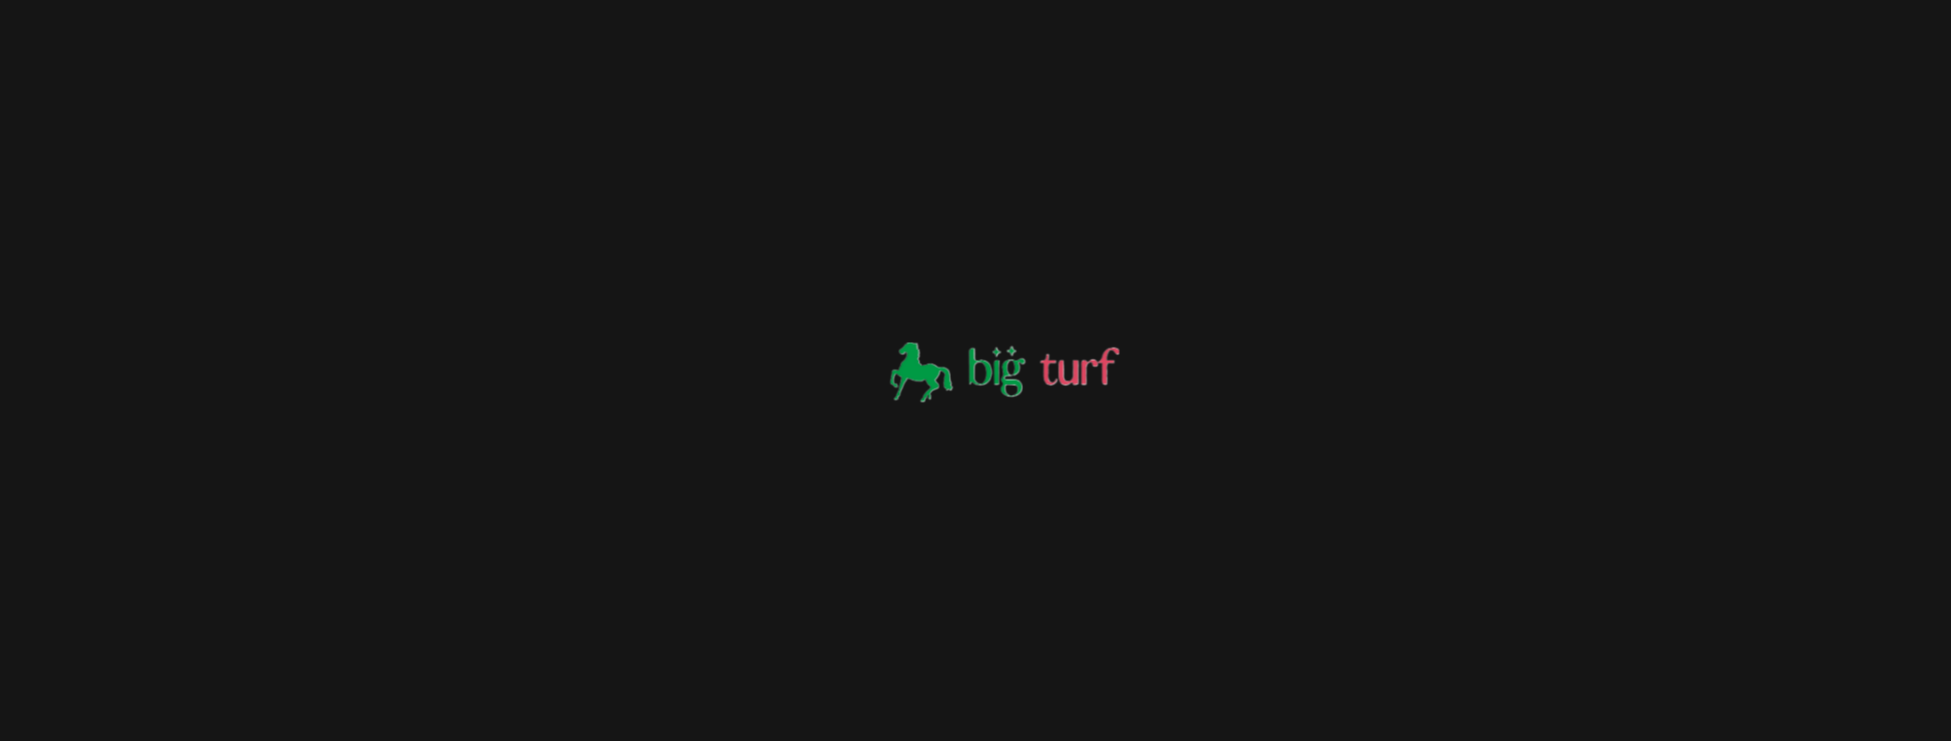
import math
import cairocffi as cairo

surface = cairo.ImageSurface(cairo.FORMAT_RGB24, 1951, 741)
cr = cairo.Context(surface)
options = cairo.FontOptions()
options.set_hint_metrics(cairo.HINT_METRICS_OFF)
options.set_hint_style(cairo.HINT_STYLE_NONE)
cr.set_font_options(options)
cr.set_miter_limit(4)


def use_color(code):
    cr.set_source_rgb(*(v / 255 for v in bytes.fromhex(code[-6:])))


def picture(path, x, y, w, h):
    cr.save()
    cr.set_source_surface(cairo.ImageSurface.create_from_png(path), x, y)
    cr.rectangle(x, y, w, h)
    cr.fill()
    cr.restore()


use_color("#151515")
cr.paint()
picture("img1.png", 889, 342, 231, 61)
surface.write_to_png("result.png")
